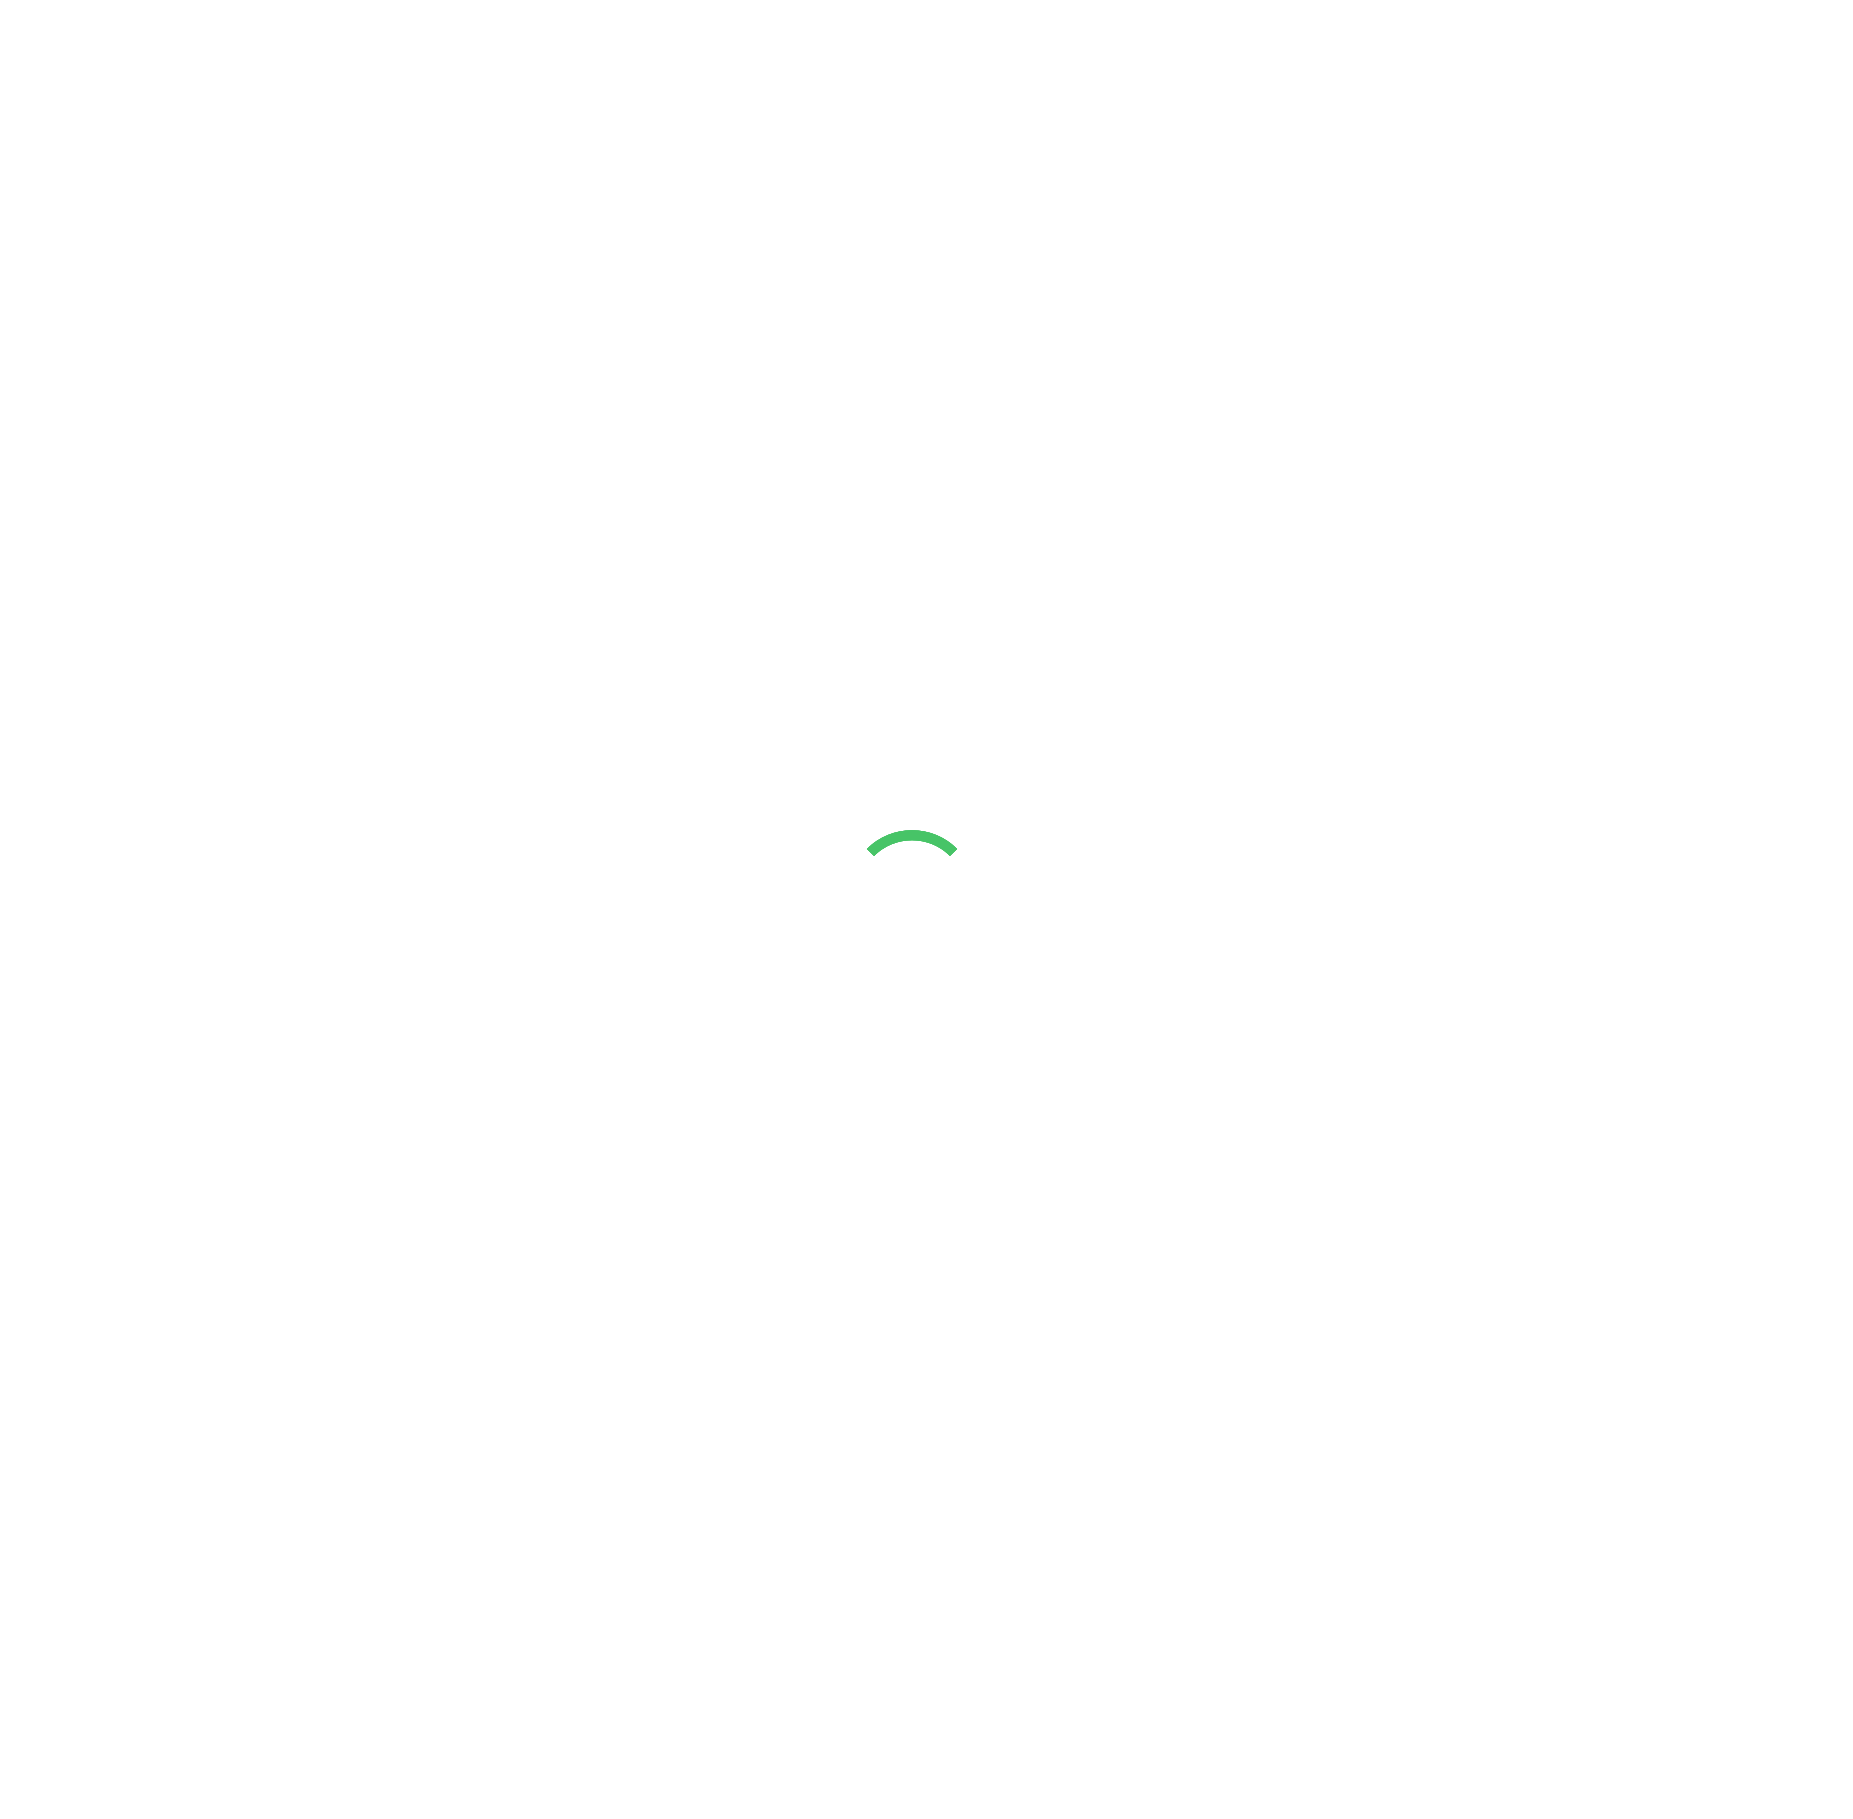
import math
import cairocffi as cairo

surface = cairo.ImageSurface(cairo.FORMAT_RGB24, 1853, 1819)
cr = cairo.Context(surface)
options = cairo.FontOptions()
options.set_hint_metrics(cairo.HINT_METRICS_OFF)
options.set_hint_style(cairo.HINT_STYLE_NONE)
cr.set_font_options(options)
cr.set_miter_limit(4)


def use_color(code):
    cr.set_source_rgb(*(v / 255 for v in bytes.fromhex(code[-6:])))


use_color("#ffffff")
cr.paint()
cr.new_path()
cr.move_to(870.5, 852.5)
cr.curve_to(893, 829.5, 931, 829.5, 953.5, 852.5)
use_color("#47c467")
cr.set_line_width(10)
cr.stroke()
cr.new_path()
cr.move_to(870.5, 852.5)
cr.curve_to(893, 829.5, 931, 829.5, 953.5, 852.5)
cr.stroke()
cr.new_path()
cr.move_to(870.5, 852.5)
cr.curve_to(893, 829.5, 931, 829.5, 953.5, 852.5)
cr.stroke()
cr.new_path()
cr.move_to(870.5, 852.5)
cr.curve_to(893, 829.5, 931, 829.5, 953.5, 852.5)
cr.stroke()
surface.write_to_png("result.png")
